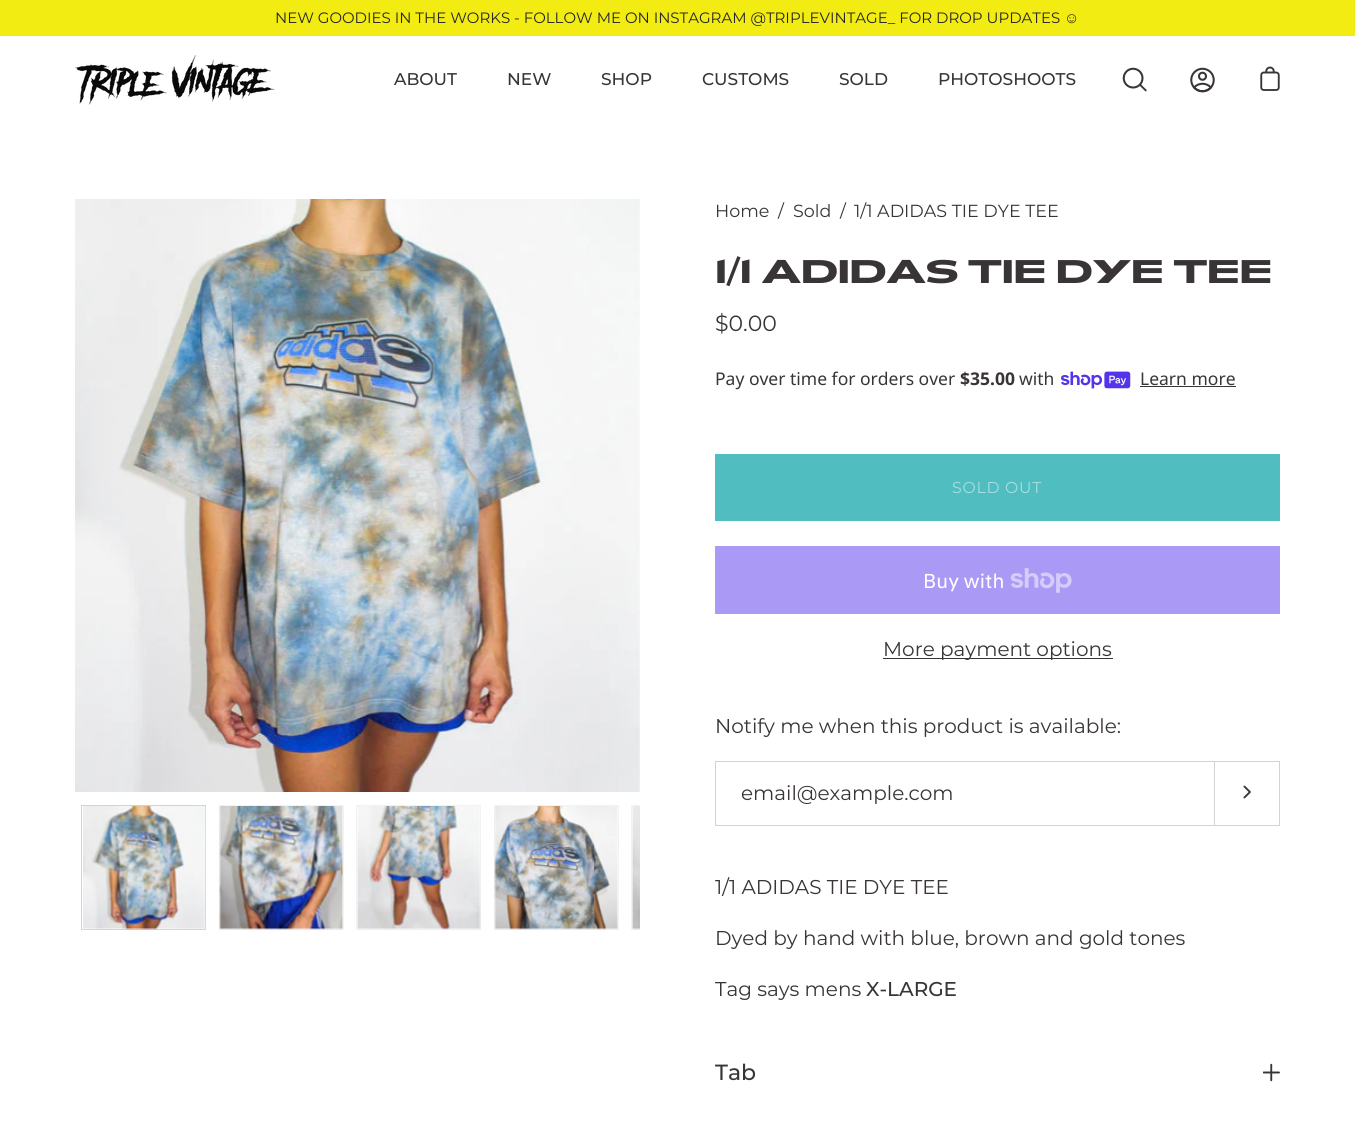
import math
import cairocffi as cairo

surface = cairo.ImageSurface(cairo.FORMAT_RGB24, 1355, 1142)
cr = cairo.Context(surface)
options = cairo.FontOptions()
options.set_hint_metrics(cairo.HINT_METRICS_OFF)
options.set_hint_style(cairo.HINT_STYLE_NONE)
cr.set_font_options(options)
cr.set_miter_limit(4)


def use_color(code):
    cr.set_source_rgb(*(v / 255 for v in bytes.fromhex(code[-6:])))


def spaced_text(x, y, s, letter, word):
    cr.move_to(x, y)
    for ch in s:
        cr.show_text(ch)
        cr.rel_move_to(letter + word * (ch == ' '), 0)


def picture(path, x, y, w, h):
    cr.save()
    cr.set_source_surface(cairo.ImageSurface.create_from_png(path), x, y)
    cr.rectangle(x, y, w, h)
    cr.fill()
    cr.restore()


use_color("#ffffff")
cr.paint()
use_color("#f2ec12")
cr.rectangle(0, 0, 1355, 36)
cr.fill()
cr.select_font_face("Montserrat")
cr.set_font_size(15)
use_color("#262626")
cr.move_to(275, 23)
cr.show_text("NEW GOODIES IN THE WORKS - FOLLOW ME ON INSTAGRAM @TRIPLEVINTAGE_ FOR DROP UPDATES")
cr.select_font_face("Liberation Sans")
cr.move_to(1064, 23)
cr.show_text("☺")
picture("img1.png", 75, 55, 200, 50)
cr.select_font_face("Montserrat Medium")
cr.set_font_size(17)
use_color("#393536")
cr.move_to(394, 85)
cr.show_text("ABOUT")
cr.move_to(507, 85)
cr.show_text("NEW")
cr.move_to(601, 85)
cr.show_text("SHOP")
cr.move_to(702, 85)
cr.show_text("CUSTOMS")
cr.move_to(839, 85)
cr.show_text("SOLD")
cr.move_to(938, 85)
cr.show_text("PHOTOSHOOTS")
picture("img2.png", 1122, 67, 25, 25)
picture("img3.png", 1190, 67, 25, 26)
picture("img4.png", 1260, 66, 20, 25)
picture("img5.png", 75, 199, 565, 593)
cr.rectangle(81.5, 805.5, 124, 124)
use_color("#d3d3d3")
cr.set_line_width(1)
cr.stroke()
picture("img6.png", 83, 806, 123, 124)
cr.rectangle(219.5, 805.5, 124, 124)
use_color("#f2f2f2")
cr.stroke()
picture("img7.png", 219, 806, 124, 124)
cr.rectangle(356.5, 805.5, 124, 124)
cr.stroke()
picture("img8.png", 357, 806, 124, 124)
cr.rectangle(494.5, 805.5, 124, 124)
cr.stroke()
picture("img9.png", 494, 806, 124, 124)
cr.select_font_face("Montserrat")
cr.set_font_size(20)
use_color("#393536")
cr.move_to(715, 894)
cr.show_text("1/1 ADIDAS TIE DYE TEE")
cr.save()
cr.rectangle(75, 799, 565, 137)
cr.clip()
cr.rectangle(631.5, 805.5, 124, 124)
use_color("#f2f2f2")
cr.stroke()
cr.restore()
picture("img10.png", 632, 806, 8, 124)
cr.set_font_size(17.5)
cr.move_to(715, 217)
cr.show_text("Home")
cr.move_to(778, 217)
cr.show_text("/")
cr.move_to(793, 217)
cr.show_text("Sold")
cr.move_to(840, 217)
cr.show_text("/")
cr.move_to(854, 217)
cr.show_text("1/1 ADIDAS TIE DYE TEE")
cr.select_font_face("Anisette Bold", cairo.FONT_SLANT_NORMAL, cairo.FONT_WEIGHT_BOLD)
cr.set_font_size(34)
cr.move_to(715, 283)
cr.show_text("1/1 ADIDAS TIE DYE TEE")
cr.select_font_face("Montserrat")
cr.set_font_size(22)
cr.move_to(715, 331)
cr.show_text("$0.00")
cr.select_font_face("Noto Sans")
cr.set_font_size(17.5)
cr.move_to(715, 385)
cr.show_text("Pay over time for orders over")
cr.select_font_face("Noto Sans", cairo.FONT_SLANT_NORMAL, cairo.FONT_WEIGHT_BOLD)
cr.move_to(960, 385)
cr.show_text("$35.00")
cr.select_font_face("Noto Sans")
cr.move_to(1019, 385)
cr.show_text("with")
picture("img11.png", 1061, 371, 70, 18)
cr.move_to(1140, 385)
cr.show_text("Learn more")
cr.rectangle(1140, 386, 96, 1)
cr.fill()
use_color("#50bdc0")
cr.rectangle(715, 454, 565, 67)
cr.fill()
cr.select_font_face("Montserrat")
cr.set_font_size(15.75)
use_color("#a8dee0")
spaced_text(952, 493, "SOLD OUT", 0.75, 0)
use_color("#aa99f5")
cr.rectangle(715, 546, 565, 68)
cr.fill()
cr.select_font_face("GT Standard")
cr.set_font_size(20)
use_color("#ffffff")
cr.move_to(923, 588)
cr.show_text("Buy with")
picture("img12.png", 1010, 568, 62, 25)
use_color("#393536")
cr.rectangle(883, 658, 230, 1)
cr.fill()
cr.select_font_face("Montserrat")
cr.move_to(883, 656)
cr.show_text("More payment options")
cr.move_to(715, 733)
cr.show_text("Notify me when this product is available:")
cr.rectangle(715.5, 761.5, 499, 64)
use_color("#d3d3d3")
cr.stroke()
use_color("#393536")
cr.move_to(741, 800)
cr.show_text("email@example.com")
use_color("#d3d3d3")
cr.rectangle(1215, 761, 65, 1)
cr.fill()
cr.rectangle(1279, 761, 1, 65)
cr.fill()
cr.rectangle(1215, 825, 65, 1)
cr.fill()
picture("img13.png", 1243, 785, 8, 14)
use_color("#393536")
cr.move_to(715, 945)
cr.show_text("Dyed by hand with blue, brown and gold tones")
cr.move_to(715, 996)
cr.show_text("Tag says mens")
cr.select_font_face("Montserrat Medium")
cr.move_to(866, 996)
cr.show_text("X-LARGE")
cr.set_font_size(22)
cr.move_to(715, 1080)
cr.show_text("Tab")
picture("img14.png", 1263, 1063, 17, 19)
surface.write_to_png("result.png")
